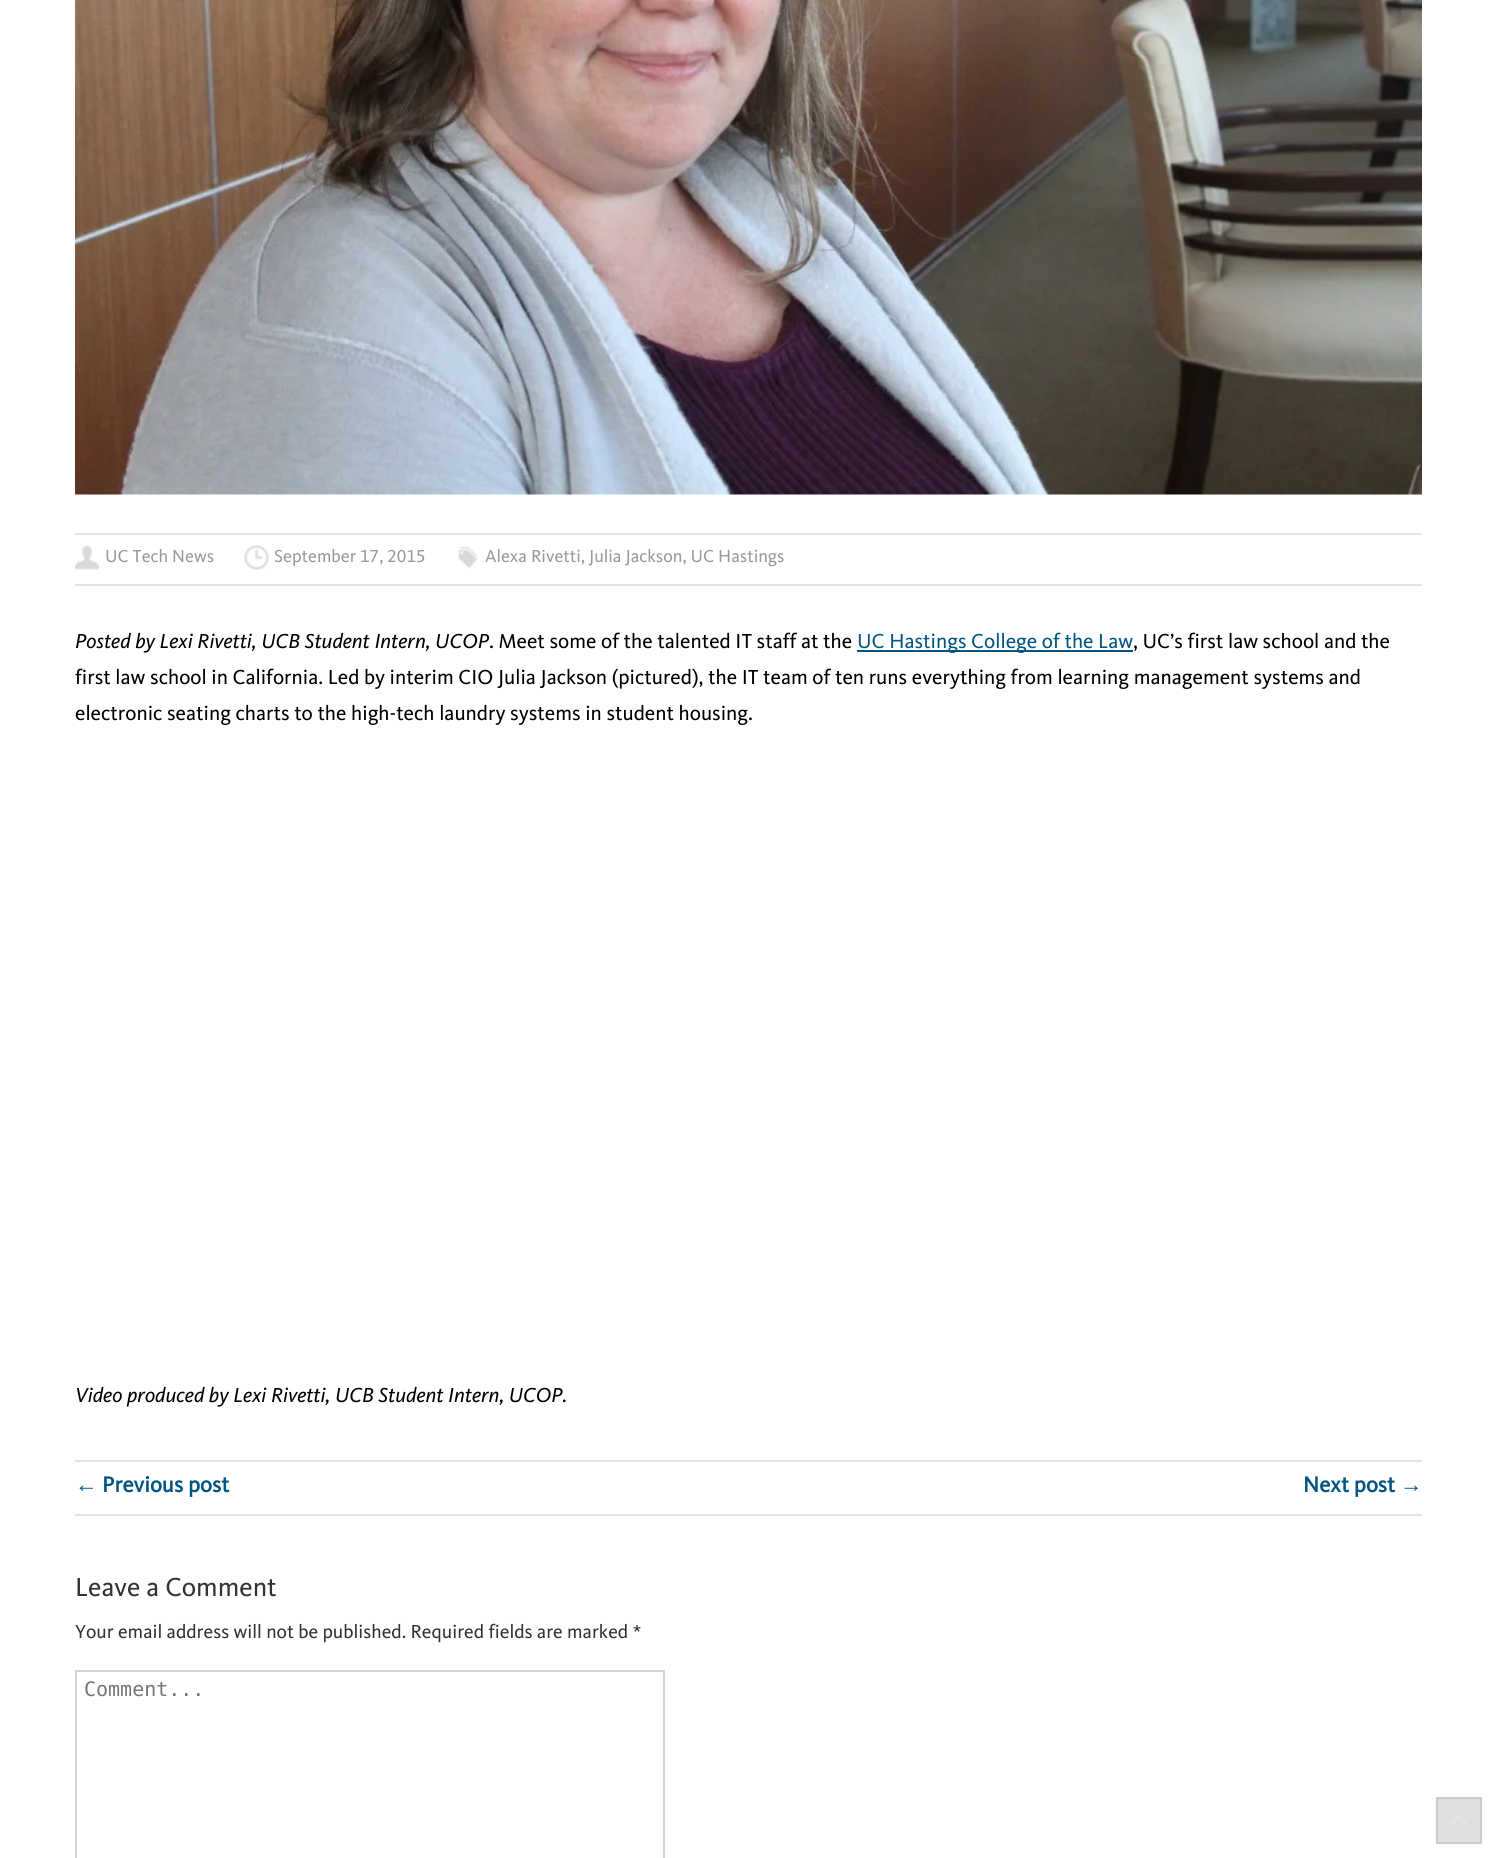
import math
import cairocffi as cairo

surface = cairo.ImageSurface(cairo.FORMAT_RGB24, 1497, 1858)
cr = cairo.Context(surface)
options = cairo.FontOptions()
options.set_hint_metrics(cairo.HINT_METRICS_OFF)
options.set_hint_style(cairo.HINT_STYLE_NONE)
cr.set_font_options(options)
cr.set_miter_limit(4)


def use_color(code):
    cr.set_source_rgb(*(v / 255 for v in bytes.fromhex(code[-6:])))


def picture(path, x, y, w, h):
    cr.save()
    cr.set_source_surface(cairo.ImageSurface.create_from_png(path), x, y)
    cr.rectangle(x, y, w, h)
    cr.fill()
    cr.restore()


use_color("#ffffff")
cr.paint()
picture("img1.png", 75, 0, 1347, 495)
use_color("#e3e3e3")
cr.rectangle(75, 533, 1347, 2)
cr.fill()
cr.rectangle(75, 584, 1347, 2)
cr.fill()
picture("img2.png", 75, 545, 24, 25)
cr.select_font_face("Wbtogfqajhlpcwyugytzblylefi")
cr.set_font_size(18)
use_color("#999999")
cr.move_to(105, 562)
cr.show_text("UC Tech News")
picture("img3.png", 244, 545, 25, 25)
cr.move_to(274, 562)
cr.show_text("September 17, 2015")
picture("img4.png", 457, 546, 21, 23)
cr.move_to(485, 562)
cr.show_text("Alexa Rivetti, Julia Jackson, UC Hastings")
cr.select_font_face("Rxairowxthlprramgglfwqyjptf")
cr.set_font_size(21)
use_color("#000000")
cr.move_to(75, 648)
cr.show_text("Posted by Lexi Rivetti, UCB Student Intern, UCOP")
cr.select_font_face("Wbtogfqajhlpcwyugytzblylefi")
cr.move_to(489, 648)
cr.show_text(". Meet some of the talented IT staff at the")
use_color("#005581")
cr.rectangle(857, 650, 276, 2)
cr.fill()
cr.move_to(857, 648)
cr.show_text("UC Hastings College of the Law")
use_color("#000000")
cr.move_to(1133, 648)
cr.show_text(", UC’s first law school and the")
cr.move_to(75, 684)
cr.show_text("first law school in California. Led by interim CIO Julia Jackson (pictured), the IT team of ten runs everything from learning management systems and")
cr.move_to(75, 720)
cr.show_text("electronic seating charts to the high-tech laundry systems in student housing.")
cr.select_font_face("Rxairowxthlprramgglfwqyjptf")
cr.move_to(75, 1402)
cr.show_text("Video produced by Lexi Rivetti, UCB Student Intern, UCOP.")
use_color("#e3e3e3")
cr.rectangle(75, 1460, 1347, 2)
cr.fill()
cr.rectangle(75, 1514, 1347, 2)
cr.fill()
cr.select_font_face("Liberation Sans", cairo.FONT_SLANT_NORMAL, cairo.FONT_WEIGHT_BOLD)
cr.set_font_size(22.5)
use_color("#005581")
cr.move_to(75, 1492)
cr.show_text("←")
cr.select_font_face("Wbtogfqajhlpcwyugytzblylefi", cairo.FONT_SLANT_NORMAL, cairo.FONT_WEIGHT_BOLD)
cr.move_to(102, 1492)
cr.show_text("Previous post")
cr.move_to(1303, 1492)
cr.show_text("Next post")
cr.select_font_face("Liberation Sans", cairo.FONT_SLANT_NORMAL, cairo.FONT_WEIGHT_BOLD)
cr.move_to(1400, 1492)
cr.show_text("→")
cr.select_font_face("Wbtogfqajhlpcwyugytzblylefi")
cr.set_font_size(27)
use_color("#333333")
cr.move_to(75, 1596)
cr.show_text("Leave a Comment")
cr.set_font_size(19.5)
cr.move_to(75, 1638)
cr.show_text("Your email address will not be published. Required fields are marked *")
cr.rectangle(76, 1671, 588, 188)
use_color("#d4d4d4")
cr.stroke()
cr.select_font_face("DejaVu Sans Mono")
cr.set_font_size(20)
use_color("#757575")
cr.move_to(84, 1696)
cr.show_text("Comment...")
use_color("#e0e0e0")
cr.rectangle(1438, 1799, 42, 43)
cr.fill()
picture("img5.png", 1451, 1816, 16, 8)
cr.rectangle(1437, 1798, 44, 45)
use_color("#cccccc")
cr.stroke()
surface.write_to_png("result.png")
